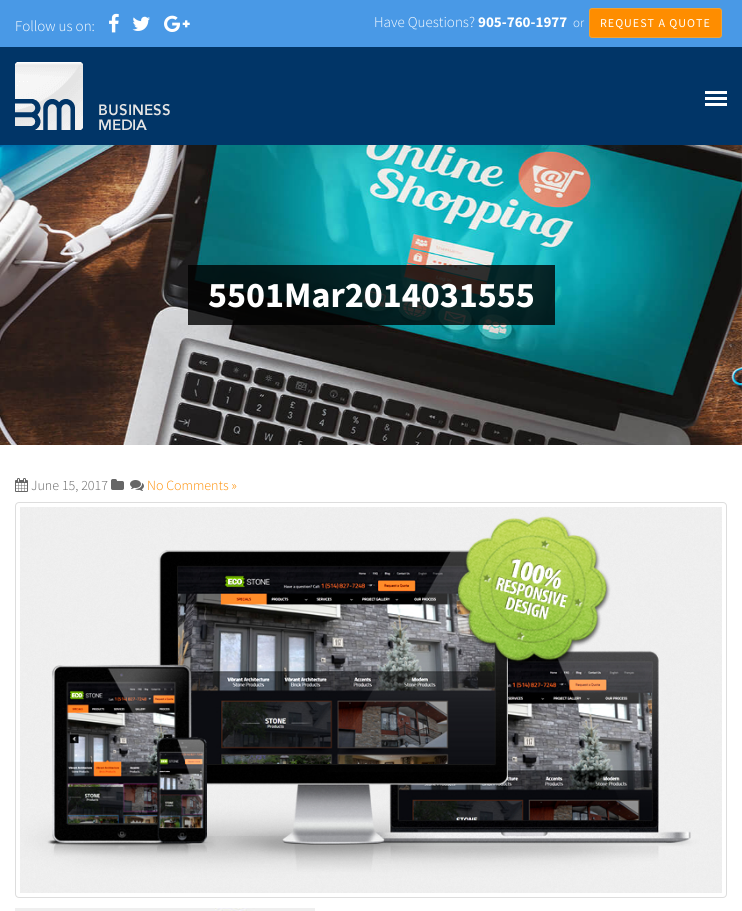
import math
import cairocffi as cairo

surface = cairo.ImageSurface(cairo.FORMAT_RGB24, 742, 911)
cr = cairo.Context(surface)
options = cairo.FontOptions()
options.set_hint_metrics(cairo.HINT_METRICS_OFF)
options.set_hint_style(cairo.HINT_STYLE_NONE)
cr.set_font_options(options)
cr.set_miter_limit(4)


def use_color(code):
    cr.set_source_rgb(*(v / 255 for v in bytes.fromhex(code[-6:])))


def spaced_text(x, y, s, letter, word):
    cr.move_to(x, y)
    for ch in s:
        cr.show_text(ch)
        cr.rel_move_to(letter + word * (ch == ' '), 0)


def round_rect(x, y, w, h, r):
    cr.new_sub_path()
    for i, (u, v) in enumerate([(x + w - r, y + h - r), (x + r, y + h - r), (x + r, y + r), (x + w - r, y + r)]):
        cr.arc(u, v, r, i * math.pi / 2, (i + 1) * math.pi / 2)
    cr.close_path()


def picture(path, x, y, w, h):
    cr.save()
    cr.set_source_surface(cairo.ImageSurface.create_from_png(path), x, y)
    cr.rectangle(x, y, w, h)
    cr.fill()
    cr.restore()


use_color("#ffffff")
cr.paint()
use_color("#013567")
cr.rectangle(0, 47, 742, 98)
cr.fill()
use_color("#4999e6")
cr.rectangle(0, 0, 742, 47)
cr.fill()
cr.select_font_face("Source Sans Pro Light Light")
cr.set_font_size(15)
use_color("#ffffff")
cr.move_to(15, 31)
cr.show_text("Follow us on:")
picture("img1.png", 109, 13, 10, 20)
picture("img2.png", 132, 16, 18, 15)
picture("img3.png", 164, 15, 26, 17)
cr.move_to(374, 27)
cr.show_text("Have Questions?")
cr.select_font_face("Source Sans Pro", cairo.FONT_SLANT_NORMAL, cairo.FONT_WEIGHT_BOLD)
cr.move_to(478, 27)
cr.show_text("905-760-1977")
cr.select_font_face("Source Sans Pro Light Light")
cr.set_font_size(13)
cr.move_to(573, 27)
cr.show_text("or")
use_color("#fe8d00")
round_rect(589.5, 8.5, 132, 29, 2.5)
cr.fill_preserve()
use_color("#eea236")
cr.set_line_width(1)
cr.stroke()
cr.select_font_face("Source Sans Pro")
cr.set_font_size(12)
use_color("#ffffff")
spaced_text(600, 27, "REQUEST A QUOTE", 1, 0)
picture("img4.png", 15, 62, 155, 68)
cr.rectangle(705, 91, 22, 3)
cr.fill()
cr.rectangle(705, 97, 22, 3)
cr.fill()
cr.rectangle(705, 103, 22, 3)
cr.fill()
picture("img5.png", 0, 145, 742, 300)
cr.set_source_rgba(0, 0, 0, 0.8)
cr.rectangle(188, 265, 367, 60)
cr.fill()
cr.select_font_face("Source Sans Pro", cairo.FONT_SLANT_NORMAL, cairo.FONT_WEIGHT_BOLD)
cr.set_font_size(36)
use_color("#ffffff")
cr.move_to(208, 307)
cr.show_text("5501Mar2014031555")
picture("img6.png", 15, 478, 13, 14)
cr.select_font_face("Source Sans Pro Light Light")
cr.set_font_size(14)
use_color("#666666")
cr.move_to(31, 490)
cr.show_text("June 15, 2017")
picture("img7.png", 111, 479, 13, 11)
picture("img8.png", 130, 480, 14, 11)
use_color("#fe8d00")
cr.move_to(147, 490)
cr.show_text("No Comments »")
round_rect(15.5, 502.5, 711, 395, 3.5)
use_color("#dddddd")
cr.stroke()
picture("img9.png", 20, 507, 702, 386)
picture("img10.png", 15, 908, 300, 3)
surface.write_to_png("result.png")
